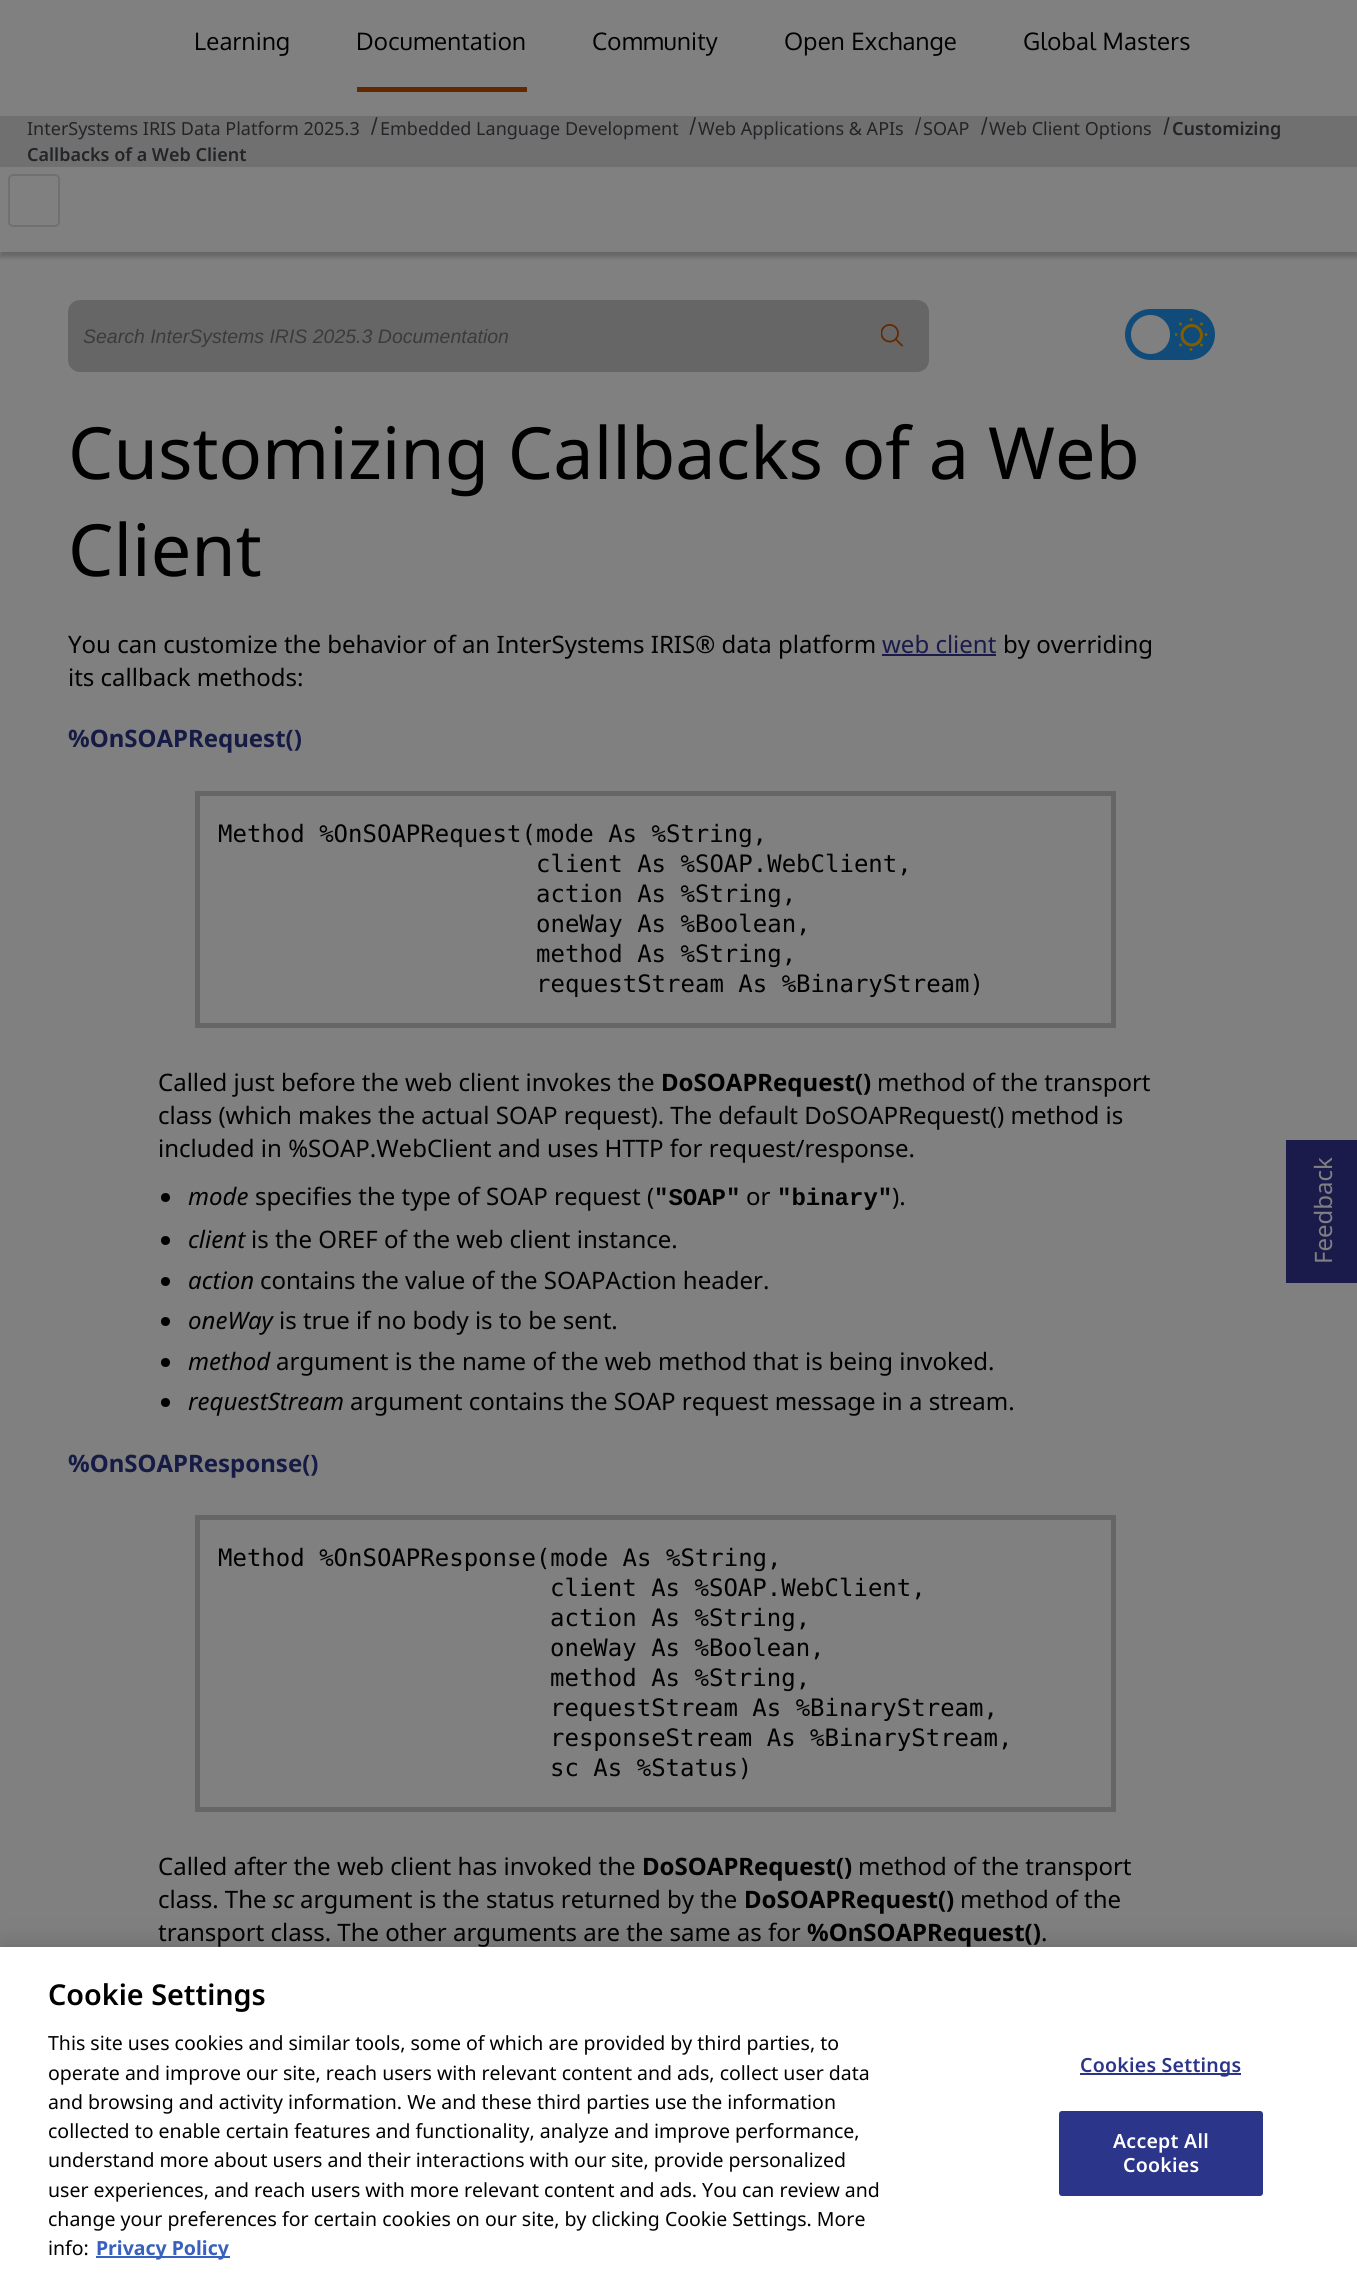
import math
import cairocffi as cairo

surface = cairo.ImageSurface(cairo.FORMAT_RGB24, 1357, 2278)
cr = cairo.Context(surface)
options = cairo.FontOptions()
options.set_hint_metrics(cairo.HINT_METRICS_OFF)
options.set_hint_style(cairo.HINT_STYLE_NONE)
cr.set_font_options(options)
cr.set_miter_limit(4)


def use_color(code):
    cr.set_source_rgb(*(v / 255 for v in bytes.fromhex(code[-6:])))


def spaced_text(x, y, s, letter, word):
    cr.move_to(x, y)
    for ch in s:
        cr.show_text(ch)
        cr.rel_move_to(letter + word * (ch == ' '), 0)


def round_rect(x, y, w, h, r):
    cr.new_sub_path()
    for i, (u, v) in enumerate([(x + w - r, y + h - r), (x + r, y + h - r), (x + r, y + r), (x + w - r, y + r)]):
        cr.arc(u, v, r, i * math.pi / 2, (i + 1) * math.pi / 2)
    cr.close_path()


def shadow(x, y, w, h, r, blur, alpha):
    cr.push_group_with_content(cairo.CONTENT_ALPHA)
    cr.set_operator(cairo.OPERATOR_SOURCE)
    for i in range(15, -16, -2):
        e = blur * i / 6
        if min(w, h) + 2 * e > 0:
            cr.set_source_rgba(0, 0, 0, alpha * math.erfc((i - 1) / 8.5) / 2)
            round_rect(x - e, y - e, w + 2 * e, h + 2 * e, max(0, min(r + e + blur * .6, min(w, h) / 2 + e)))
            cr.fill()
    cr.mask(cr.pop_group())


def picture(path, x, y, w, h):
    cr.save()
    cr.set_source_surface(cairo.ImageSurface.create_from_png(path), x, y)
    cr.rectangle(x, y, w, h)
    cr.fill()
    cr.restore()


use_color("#808080")
cr.paint()
cr.select_font_face("Oxygen")
cr.set_font_size(24)
use_color("#000000")
spaced_text(194, 50, "Learning", 0.25, 0)
use_color("#642800")
cr.rectangle(357, 87, 170, 5)
cr.fill()
use_color("#000000")
spaced_text(356, 50, "Documentation", 0.25, 0)
spaced_text(592, 50, "Community", 0.25, 0)
spaced_text(784, 50, "Open Exchange", 0.25, 0)
spaced_text(1023, 50, "Global Masters", 0.25, 0)
use_color("#707070")
cr.rectangle(0, 116, 1357, 51)
cr.fill()
cr.select_font_face("Noto Sans")
cr.set_font_size(18)
use_color("#222427")
cr.move_to(27, 135)
cr.show_text("InterSystems IRIS Data Platform 2025.3")
use_color("#222426")
cr.new_path()
cr.move_to(1168, 117)
cr.line_to(1169.5, 117.5)
cr.line_to(1165, 135)
cr.line_to(1163.5, 134.5)
cr.close_path()
cr.fill()
cr.select_font_face("Noto Sans SemiBold")
use_color("#222427")
cr.move_to(1172, 135)
cr.show_text("Customizing")
cr.move_to(27, 161)
cr.show_text("Callbacks of a Web Client")
use_color("#222426")
cr.new_path()
cr.move_to(376, 117)
cr.line_to(377.5, 117.5)
cr.line_to(372.5, 135)
cr.line_to(371, 134.5)
cr.close_path()
cr.fill()
cr.select_font_face("Noto Sans")
use_color("#222427")
cr.move_to(380, 135)
cr.show_text("Embedded Language Development")
use_color("#222426")
cr.new_path()
cr.move_to(694.5, 117)
cr.line_to(696, 117.5)
cr.line_to(691, 135)
cr.line_to(689.5, 134.5)
cr.close_path()
cr.fill()
use_color("#222427")
cr.move_to(698, 135)
cr.show_text("Web Applications & APIs")
use_color("#222426")
cr.new_path()
cr.move_to(920, 117)
cr.line_to(921, 117.5)
cr.line_to(916.5, 135)
cr.line_to(915, 134.5)
cr.close_path()
cr.fill()
use_color("#222427")
cr.move_to(923, 135)
cr.show_text("SOAP")
use_color("#222426")
cr.new_path()
cr.move_to(986, 117)
cr.line_to(987.5, 117.5)
cr.line_to(982.5, 135)
cr.line_to(981, 134.5)
cr.close_path()
cr.fill()
use_color("#222427")
cr.move_to(989, 135)
cr.show_text("Web Client Options")
cr.save()
cr.rectangle(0, 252, 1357, 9)
cr.clip()
use_color("#666666")
shadow(0, 171, 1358, 86, 0, 2, 1)
cr.restore()
round_rect(9, 175, 50, 51, 4)
use_color("#707070")
cr.stroke()
use_color("#666666")
round_rect(68, 300, 861, 72, 12)
cr.fill()
cr.select_font_face("Liberation Sans", cairo.FONT_SLANT_ITALIC)
cr.set_font_size(19.5)
use_color("#3b3b3b")
cr.move_to(83, 343)
cr.show_text("Search InterSystems IRIS 2025.3 Documentation")
picture("img1.png", 881, 324, 22, 23)
use_color("#114b7a")
round_rect(1125, 309, 90, 51, 25.5)
cr.fill()
use_color("#808080")
cr.arc(1150.5, 334.5, 19.5, 0, 2 * math.pi)
cr.fill()
picture("img2.png", 1175, 318, 33, 33)
cr.select_font_face("Noto Sans")
cr.set_font_size(72)
use_color("#000000")
cr.move_to(68, 479)
cr.show_text("Customizing Callbacks of a Web")
cr.move_to(68, 576)
cr.show_text("Client")
cr.set_font_size(24)
cr.move_to(68, 653)
cr.show_text("You can customize the behavior of an InterSystems IRIS® data platform")
use_color("#1a1b4b")
cr.move_to(882, 653)
cr.show_text("web client")
cr.rectangle(882, 654, 114, 2)
cr.fill()
use_color("#000000")
cr.move_to(1003, 653)
cr.show_text("by overriding")
cr.move_to(68, 686)
cr.show_text("its callback methods:")
cr.select_font_face("Noto Sans", cairo.FONT_SLANT_NORMAL, cairo.FONT_WEIGHT_BOLD)
use_color("#161b45")
cr.move_to(68, 747)
cr.show_text("%OnSOAPRequest()")
cr.rectangle(197.5, 793.5, 916, 232)
use_color("#666666")
cr.set_line_width(5)
cr.stroke()
cr.select_font_face("DejaVu Sans Mono")
use_color("#000000")
cr.move_to(218, 842)
cr.show_text("Method %OnSOAPRequest(mode As %String,")
cr.move_to(536, 872)
cr.show_text("client As %SOAP.WebClient,")
cr.move_to(536, 902)
cr.show_text("action As %String,")
cr.move_to(536, 932)
cr.show_text("oneWay As %Boolean,")
cr.move_to(536, 962)
cr.show_text("method As %String,")
cr.move_to(536, 992)
cr.show_text("requestStream As %BinaryStream)")
cr.select_font_face("Noto Sans")
cr.move_to(158, 1091)
cr.show_text("Called just before the web client invokes the")
cr.select_font_face("Noto Sans", cairo.FONT_SLANT_NORMAL, cairo.FONT_WEIGHT_BOLD)
cr.move_to(661, 1091)
cr.show_text("DoSOAPRequest()")
cr.select_font_face("Noto Sans")
cr.move_to(877, 1091)
cr.show_text("method of the transport")
cr.move_to(158, 1124)
cr.show_text("class (which makes the actual SOAP request). The default DoSOAPRequest() method is")
cr.move_to(158, 1157)
cr.show_text("included in %SOAP.WebClient and uses HTTP for request/response.")
cr.new_path()
cr.arc(165.5, 1197.5, 4.5, 0, 2 * math.pi)
cr.fill()
cr.select_font_face("Noto Sans", cairo.FONT_SLANT_ITALIC)
cr.move_to(188, 1205)
cr.show_text("mode")
cr.select_font_face("Noto Sans")
cr.move_to(255, 1205)
cr.show_text("specifies the type of SOAP request (")
cr.select_font_face("Liberation Mono", cairo.FONT_SLANT_NORMAL, cairo.FONT_WEIGHT_BOLD)
cr.move_to(654, 1205)
cr.show_text("\"SOAP\"")
cr.select_font_face("Noto Sans")
cr.move_to(746, 1205)
cr.show_text("or")
cr.select_font_face("Liberation Mono", cairo.FONT_SLANT_NORMAL, cairo.FONT_WEIGHT_BOLD)
cr.move_to(777, 1205)
cr.show_text("\"binary\"")
cr.select_font_face("Noto Sans")
cr.move_to(892, 1205)
cr.show_text(").")
cr.new_path()
cr.arc(165.5, 1240.5, 4.5, 0, 2 * math.pi)
cr.fill()
cr.select_font_face("Noto Sans", cairo.FONT_SLANT_ITALIC)
cr.move_to(188, 1248)
cr.show_text("client")
cr.select_font_face("Noto Sans")
cr.move_to(251, 1248)
cr.show_text("is the OREF of the web client instance.")
cr.new_path()
cr.arc(165.5, 1281.5, 4.5, 0, 2 * math.pi)
cr.fill()
cr.select_font_face("Noto Sans", cairo.FONT_SLANT_ITALIC)
cr.move_to(188, 1289)
cr.show_text("action")
cr.select_font_face("Noto Sans")
cr.move_to(260, 1289)
cr.show_text("contains the value of the SOAPAction header.")
cr.new_path()
cr.arc(165.5, 1321.5, 4.5, 0, 2 * math.pi)
cr.fill()
cr.select_font_face("Noto Sans", cairo.FONT_SLANT_ITALIC)
cr.move_to(188, 1329)
cr.show_text("oneWay")
cr.select_font_face("Noto Sans")
cr.move_to(279, 1329)
cr.show_text("is true if no body is to be sent.")
cr.new_path()
cr.arc(165.5, 1362.5, 4.5, 0, 2 * math.pi)
cr.fill()
cr.select_font_face("Noto Sans", cairo.FONT_SLANT_ITALIC)
cr.move_to(188, 1370)
cr.show_text("method")
cr.select_font_face("Noto Sans")
cr.move_to(276, 1370)
cr.show_text("argument is the name of the web method that is being invoked.")
cr.new_path()
cr.arc(165.5, 1402.5, 4.5, 0, 2 * math.pi)
cr.fill()
cr.select_font_face("Noto Sans", cairo.FONT_SLANT_ITALIC)
cr.move_to(188, 1410)
cr.show_text("requestStream")
cr.select_font_face("Noto Sans")
cr.move_to(350, 1410)
cr.show_text("argument contains the SOAP request message in a stream.")
cr.select_font_face("Noto Sans", cairo.FONT_SLANT_NORMAL, cairo.FONT_WEIGHT_BOLD)
use_color("#161b45")
cr.move_to(68, 1472)
cr.show_text("%OnSOAPResponse()")
cr.rectangle(197.5, 1517.5, 916, 292)
use_color("#666666")
cr.stroke()
cr.select_font_face("DejaVu Sans Mono")
use_color("#000000")
cr.move_to(218, 1566)
cr.show_text("Method %OnSOAPResponse(mode As %String,")
cr.move_to(550, 1596)
cr.show_text("client As %SOAP.WebClient,")
cr.move_to(550, 1626)
cr.show_text("action As %String,")
cr.move_to(550, 1656)
cr.show_text("oneWay As %Boolean,")
cr.move_to(550, 1686)
cr.show_text("method As %String,")
cr.move_to(550, 1716)
cr.show_text("requestStream As %BinaryStream,")
cr.move_to(550, 1746)
cr.show_text("responseStream As %BinaryStream,")
cr.move_to(550, 1776)
cr.show_text("sc As %Status)")
cr.select_font_face("Noto Sans")
cr.move_to(158, 1875)
cr.show_text("Called after the web client has invoked the")
cr.select_font_face("Noto Sans", cairo.FONT_SLANT_NORMAL, cairo.FONT_WEIGHT_BOLD)
cr.move_to(642, 1875)
cr.show_text("DoSOAPRequest()")
cr.select_font_face("Noto Sans")
cr.move_to(858, 1875)
cr.show_text("method of the transport")
cr.move_to(158, 1908)
cr.show_text("class. The")
cr.select_font_face("Noto Sans", cairo.FONT_SLANT_ITALIC)
cr.move_to(273, 1908)
cr.show_text("sc")
cr.select_font_face("Noto Sans")
cr.move_to(300, 1908)
cr.show_text("argument is the status returned by the")
cr.select_font_face("Noto Sans", cairo.FONT_SLANT_NORMAL, cairo.FONT_WEIGHT_BOLD)
cr.move_to(744, 1908)
cr.show_text("DoSOAPRequest()")
cr.select_font_face("Noto Sans")
cr.move_to(960, 1908)
cr.show_text("method of the")
cr.move_to(158, 1941)
cr.show_text("transport class. The other arguments are the same as for")
cr.select_font_face("Noto Sans", cairo.FONT_SLANT_NORMAL, cairo.FONT_WEIGHT_BOLD)
cr.move_to(807, 1941)
cr.show_text("%OnSOAPRequest()")
cr.select_font_face("Noto Sans")
cr.move_to(1041, 1941)
cr.show_text(".")
use_color("#1a1b4b")
cr.rectangle(1286, 1140, 71, 143)
cr.fill()
use_color("#808080")
cr.save()
cr.translate(1332, 1264)
cr.rotate(-90 * math.pi / 180)
cr.move_to(0, 0)
cr.show_text("Feedback")
cr.restore()
use_color("#000000")
shadow(0, 1947, 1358, 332, 0, 13.5, 0.2)
use_color("#ffffff")
cr.rectangle(0, 1947, 1357, 331)
cr.fill()
cr.select_font_face("Noto Sans SemiBold")
cr.set_font_size(28.75)
use_color("#000000")
cr.move_to(48, 2005)
cr.show_text("Cookie Settings")
cr.select_font_face("Noto Sans")
cr.set_font_size(19.5)
cr.move_to(48, 2050)
cr.show_text("This site uses cookies and similar tools, some of which are provided by third parties, to")
cr.move_to(48, 2080)
cr.show_text("operate and improve our site, reach users with relevant content and ads, collect user data")
cr.move_to(48, 2109)
cr.show_text("and browsing and activity information. We and these third parties use the information")
cr.move_to(48, 2138)
cr.show_text("collected to enable certain features and functionality, analyze and improve performance,")
cr.move_to(48, 2167)
cr.show_text("understand more about users and their interactions with our site, provide personalized")
cr.move_to(48, 2197)
cr.show_text("user experiences, and reach users with more relevant content and ads. You can review and")
cr.move_to(48, 2226)
cr.show_text("change your preferences for certain cookies on our site, by clicking Cookie Settings. More")
cr.move_to(48, 2255)
cr.show_text("info:")
use_color("#3860be")
cr.rectangle(96, 2256, 134, 2)
cr.fill()
cr.select_font_face("Noto Sans", cairo.FONT_SLANT_NORMAL, cairo.FONT_WEIGHT_BOLD)
cr.move_to(96, 2255)
cr.show_text("Privacy Policy")
use_color("#2b3589")
cr.rectangle(1080, 2073, 161, 2)
cr.fill()
cr.select_font_face("Noto Sans SemiBold")
spaced_text(1080, 2072, "Cookies Settings", 0.25, 0)
round_rect(1060, 2112, 202, 83, 2)
cr.fill_preserve()
cr.set_line_width(2)
cr.stroke()
use_color("#ffffff")
spaced_text(1113, 2148, "Accept All", 0.25, 0)
spaced_text(1123, 2172, "Cookies", 0.25, 0)
surface.write_to_png("result.png")
